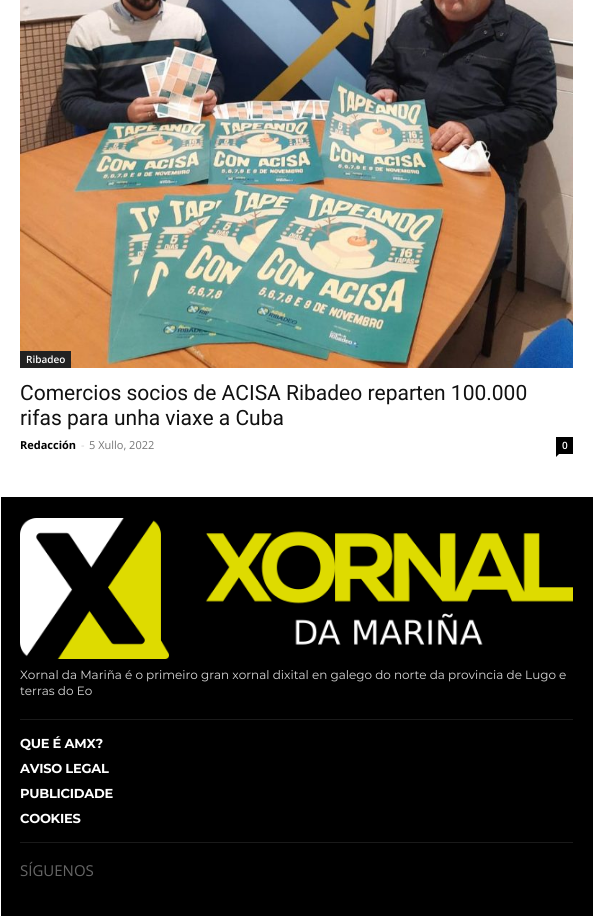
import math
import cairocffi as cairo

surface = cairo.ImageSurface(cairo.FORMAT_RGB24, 593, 916)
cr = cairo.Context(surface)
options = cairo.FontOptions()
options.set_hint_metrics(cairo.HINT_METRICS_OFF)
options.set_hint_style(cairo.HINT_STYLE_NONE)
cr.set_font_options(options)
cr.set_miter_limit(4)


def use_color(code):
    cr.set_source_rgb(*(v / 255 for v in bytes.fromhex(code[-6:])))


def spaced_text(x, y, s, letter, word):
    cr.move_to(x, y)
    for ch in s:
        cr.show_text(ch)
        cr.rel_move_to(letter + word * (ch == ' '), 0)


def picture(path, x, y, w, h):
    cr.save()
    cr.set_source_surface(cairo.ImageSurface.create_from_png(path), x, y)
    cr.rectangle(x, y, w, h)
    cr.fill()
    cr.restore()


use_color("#ffffff")
cr.paint()
picture("img1.png", 20, 0, 553, 368)
use_color("#222222")
cr.rectangle(20, 351, 51, 17)
cr.fill()
cr.select_font_face("Open Sans SemiBold")
cr.set_font_size(10)
use_color("#ffffff")
cr.move_to(26, 363)
cr.show_text("Ribadeo")
cr.select_font_face("Roboto")
cr.set_font_size(21)
use_color("#111111")
cr.move_to(20, 400)
cr.show_text("Comercios socios de ACISA Ribadeo reparten 100.000")
cr.move_to(20, 425)
cr.show_text("rifas para unha viaxe a Cuba")
cr.select_font_face("Open Sans", cairo.FONT_SLANT_NORMAL, cairo.FONT_WEIGHT_BOLD)
cr.set_font_size(11)
use_color("#000000")
cr.move_to(20, 449)
cr.show_text("Redacción")
cr.select_font_face("Open Sans")
use_color("#cccccc")
cr.move_to(81, 449)
cr.show_text("-")
use_color("#767676")
cr.move_to(89, 449)
cr.show_text("5 Xullo, 2022")
use_color("#000000")
cr.rectangle(556, 437, 17, 17)
cr.fill()
cr.select_font_face("Open Sans SemiBold")
cr.set_font_size(10)
use_color("#ffffff")
cr.move_to(562, 449)
cr.show_text("0")
use_color("#000000")
cr.new_path()
cr.move_to(556, 454)
cr.line_to(559, 454)
cr.line_to(556, 457)
cr.close_path()
cr.fill()
cr.rectangle(1, 497, 592, 419)
cr.fill()
use_color("#1a1a1a")
cr.rectangle(20, 719, 553, 1)
cr.fill()
picture("img2.png", 20, 518, 553, 141)
cr.select_font_face("Montserrat")
cr.set_font_size(12)
use_color("#d8d8d8")
cr.move_to(20, 679)
cr.show_text("Xornal da Mariña é o primeiro gran xornal dixital en galego do norte da provincia de Lugo e")
cr.move_to(20, 695)
cr.show_text("terras do Eo")
use_color("#1a1a1a")
cr.rectangle(20, 842, 553, 1)
cr.fill()
cr.select_font_face("Montserrat", cairo.FONT_SLANT_NORMAL, cairo.FONT_WEIGHT_BOLD)
cr.set_font_size(13)
use_color("#ffffff")
spaced_text(20, 748, "QUE É AMX?", -0.25, 0)
spaced_text(20, 773, "AVISO LEGAL", -0.25, 0)
spaced_text(20, 798, "PUBLICIDADE", -0.25, 0)
spaced_text(20, 823, "COOKIES", -0.25, 0)
cr.select_font_face("Open Sans")
cr.set_font_size(15)
use_color("#666666")
cr.move_to(20, 876)
cr.show_text("SÍGUENOS")
surface.write_to_png("result.png")
